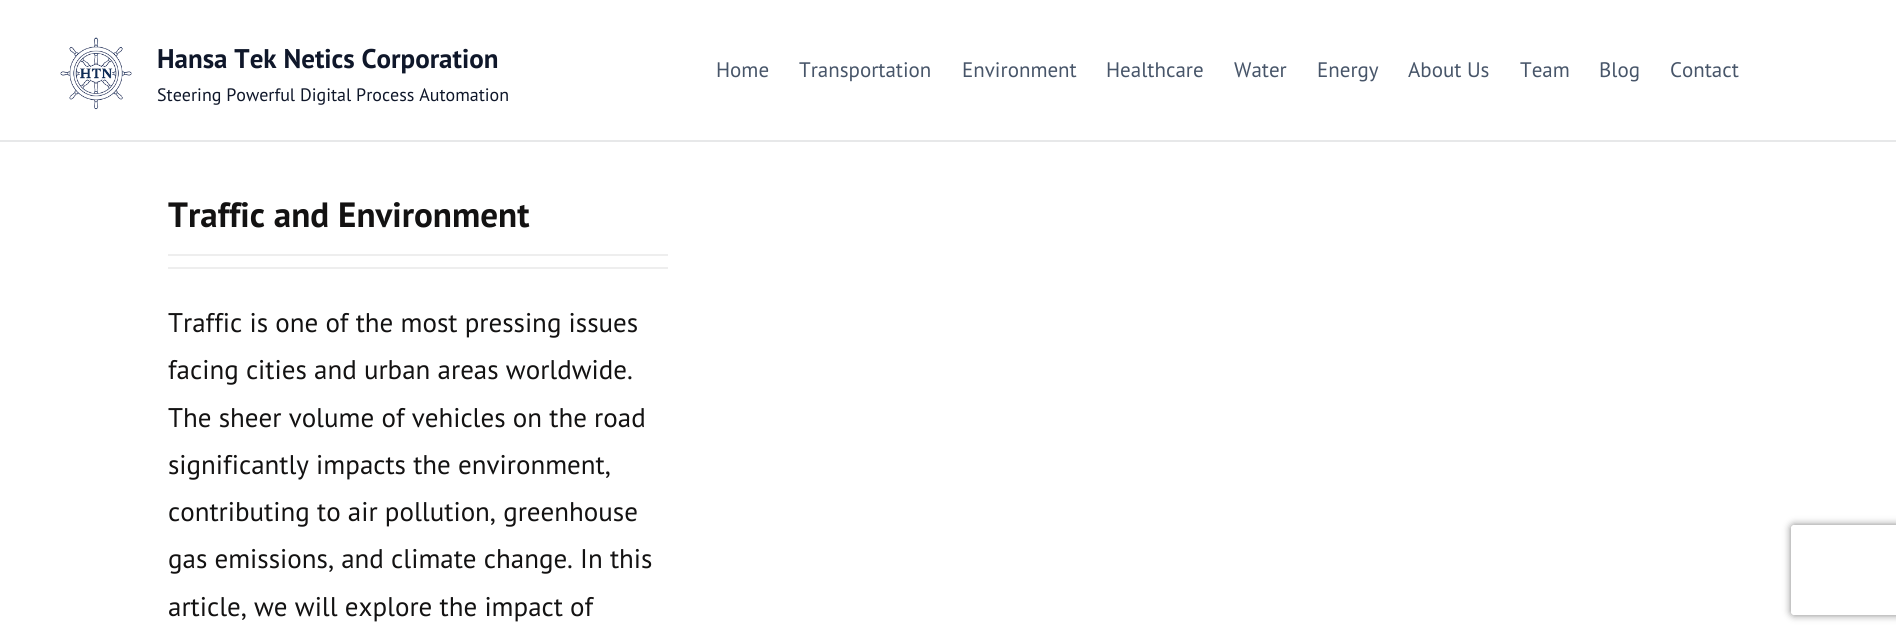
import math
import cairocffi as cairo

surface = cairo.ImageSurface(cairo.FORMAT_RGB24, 1896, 635)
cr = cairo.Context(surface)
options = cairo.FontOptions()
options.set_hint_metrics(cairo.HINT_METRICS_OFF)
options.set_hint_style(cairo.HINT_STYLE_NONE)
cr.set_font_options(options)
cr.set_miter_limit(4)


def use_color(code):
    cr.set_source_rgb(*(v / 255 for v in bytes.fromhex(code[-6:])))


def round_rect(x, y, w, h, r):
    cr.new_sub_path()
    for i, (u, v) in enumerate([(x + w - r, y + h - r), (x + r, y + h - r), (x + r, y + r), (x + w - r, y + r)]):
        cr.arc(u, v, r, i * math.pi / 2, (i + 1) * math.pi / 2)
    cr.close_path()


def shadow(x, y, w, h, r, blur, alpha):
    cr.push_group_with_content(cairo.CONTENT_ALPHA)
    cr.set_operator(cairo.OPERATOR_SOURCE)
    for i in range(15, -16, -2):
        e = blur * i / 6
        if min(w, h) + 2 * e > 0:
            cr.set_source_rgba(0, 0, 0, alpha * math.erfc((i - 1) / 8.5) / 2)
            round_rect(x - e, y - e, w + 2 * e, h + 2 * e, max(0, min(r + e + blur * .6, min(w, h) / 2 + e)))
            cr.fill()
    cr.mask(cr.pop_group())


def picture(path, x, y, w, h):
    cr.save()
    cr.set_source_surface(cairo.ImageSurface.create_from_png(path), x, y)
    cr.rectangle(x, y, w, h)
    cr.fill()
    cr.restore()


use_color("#ffffff")
cr.paint()
use_color("#e7e8e9")
cr.rectangle(0, 140, 1896, 2)
cr.fill()
picture("img1.png", 60, 37, 72, 73)
cr.select_font_face("PT Sans", cairo.FONT_SLANT_NORMAL, cairo.FONT_WEIGHT_BOLD)
cr.set_font_size(27)
use_color("#0f172a")
cr.move_to(157, 68)
cr.show_text("Hansa Tek Netics Corporation")
cr.select_font_face("PT Sans")
cr.set_font_size(18)
cr.move_to(157, 101)
cr.show_text("Steering Powerful Digital Process Automation")
cr.set_font_size(21)
use_color("#475569")
cr.move_to(716, 77)
cr.show_text("Home")
cr.move_to(799, 77)
cr.show_text("Transportation")
cr.move_to(962, 77)
cr.show_text("Environment")
cr.move_to(1106, 77)
cr.show_text("Healthcare")
cr.move_to(1234, 77)
cr.show_text("Water")
cr.move_to(1317, 77)
cr.show_text("Energy")
cr.move_to(1408, 77)
cr.show_text("About Us")
cr.move_to(1520, 77)
cr.show_text("Team")
cr.move_to(1599, 77)
cr.show_text("Blog")
cr.move_to(1670, 77)
cr.show_text("Contact")
use_color("#eeeeee")
cr.rectangle(168, 267, 500, 2)
cr.fill()
cr.select_font_face("PT Sans", cairo.FONT_SLANT_NORMAL, cairo.FONT_WEIGHT_BOLD)
cr.set_font_size(35.1)
use_color("#131212")
cr.move_to(168, 227)
cr.show_text("Traffic and Environment")
use_color("#eeeeee")
cr.rectangle(168, 254, 500, 2)
cr.fill()
cr.select_font_face("PT Sans")
cr.set_font_size(27)
use_color("#131212")
cr.move_to(168, 332)
cr.show_text("Traffic is one of the most pressing issues")
cr.move_to(168, 379)
cr.show_text("facing cities and urban areas worldwide.")
cr.move_to(168, 427)
cr.show_text("The sheer volume of vehicles on the road")
cr.move_to(168, 474)
cr.show_text("significantly impacts the environment,")
cr.move_to(168, 521)
cr.show_text("contributing to air pollution, greenhouse")
cr.move_to(168, 568)
cr.show_text("gas emissions, and climate change. In this")
cr.move_to(168, 616)
cr.show_text("article, we will explore the impact of")
cr.save()
cr.set_fill_rule(cairo.FILL_RULE_EVEN_ODD)
cr.new_path()
cr.move_to(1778, 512)
cr.line_to(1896, 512)
cr.line_to(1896, 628)
cr.line_to(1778, 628)
cr.close_path()
cr.move_to(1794, 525)
cr.line_to(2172, 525)
cr.curve_to(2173.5, 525, 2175, 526.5, 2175, 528)
cr.line_to(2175, 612)
cr.curve_to(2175, 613.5, 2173.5, 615, 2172, 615)
cr.line_to(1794, 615)
cr.curve_to(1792.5, 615, 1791, 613.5, 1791, 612)
cr.line_to(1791, 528)
cr.curve_to(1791, 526.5, 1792.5, 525, 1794, 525)
cr.close_path()
cr.clip()
use_color("#808080")
shadow(1791, 525, 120, 90, 3, 4, 1)
cr.restore()
surface.write_to_png("result.png")
